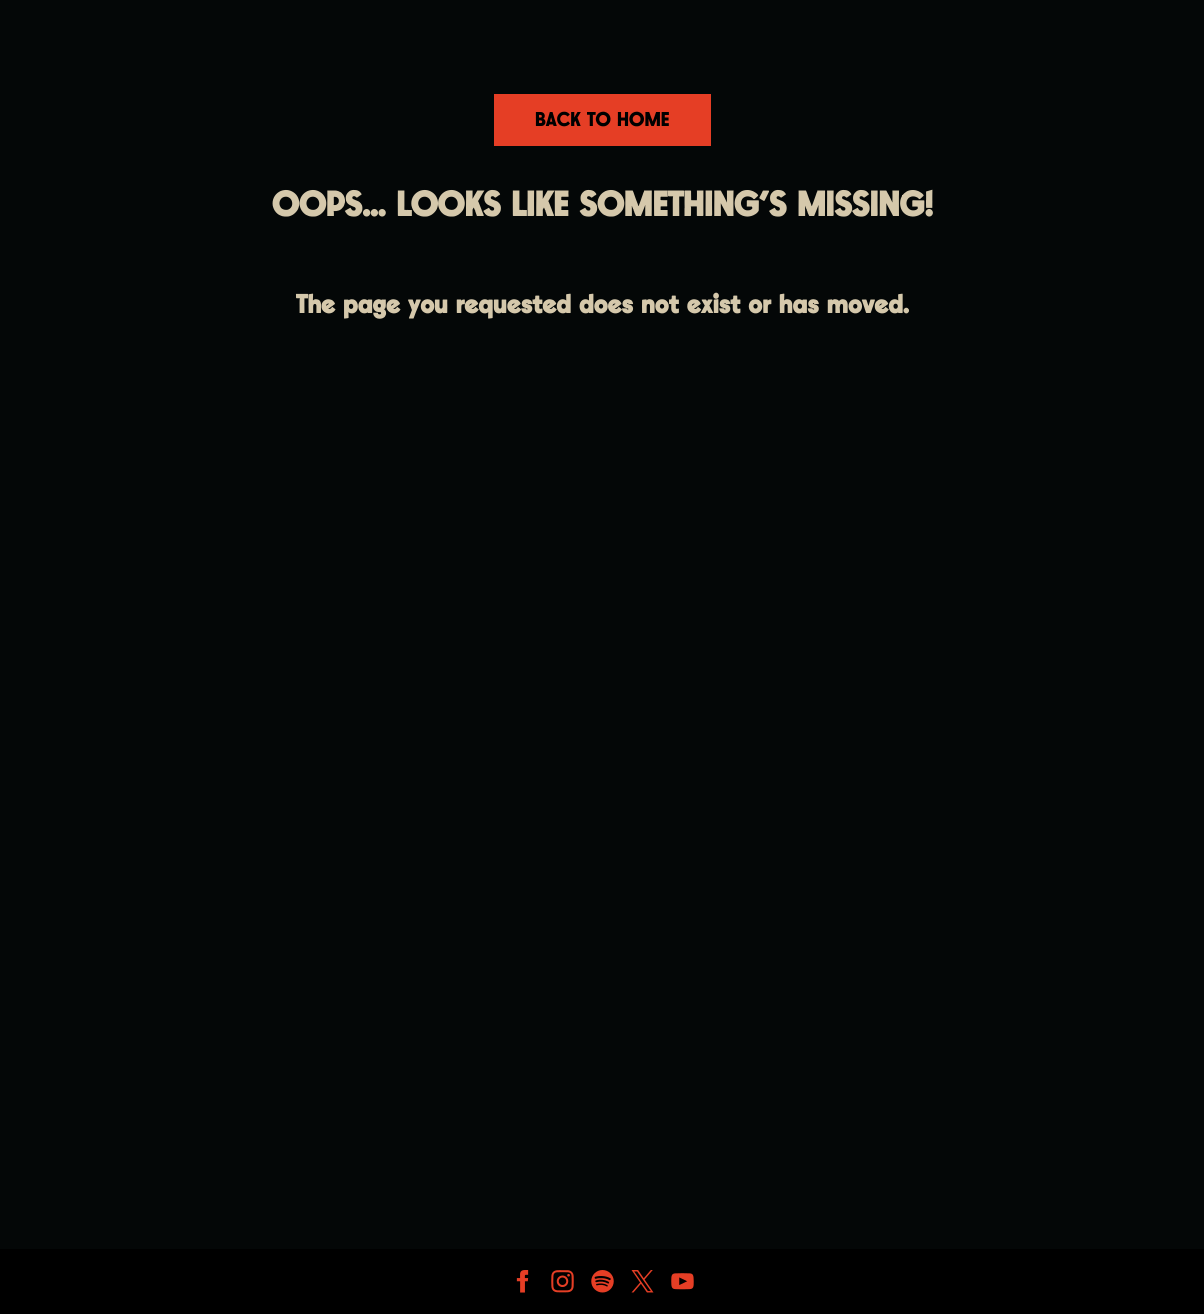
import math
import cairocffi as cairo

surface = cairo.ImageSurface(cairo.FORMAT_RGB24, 1204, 1314)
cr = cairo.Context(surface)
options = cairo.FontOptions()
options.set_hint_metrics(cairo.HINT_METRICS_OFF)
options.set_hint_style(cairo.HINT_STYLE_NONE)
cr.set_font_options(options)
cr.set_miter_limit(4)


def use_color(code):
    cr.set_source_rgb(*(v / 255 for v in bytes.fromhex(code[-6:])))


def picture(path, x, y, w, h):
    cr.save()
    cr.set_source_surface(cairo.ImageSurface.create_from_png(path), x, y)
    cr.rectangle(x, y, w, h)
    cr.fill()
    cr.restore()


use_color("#040707")
cr.paint()
use_color("#e53e25")
cr.rectangle(494, 94, 217, 52)
cr.fill()
cr.select_font_face("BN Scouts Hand")
cr.set_font_size(20)
use_color("#000000")
cr.move_to(535, 126)
cr.show_text("BACK TO HOME")
cr.select_font_face("BN Scouts Hand", cairo.FONT_SLANT_NORMAL, cairo.FONT_WEIGHT_BOLD)
cr.set_font_size(35)
use_color("#d5c8ab")
cr.move_to(272, 216)
cr.show_text("OOPS... LOOKS LIKE SOMETHING'S MISSING!")
cr.set_font_size(26.25)
cr.move_to(296, 313)
cr.show_text("The page you requested does not exist or has moved.")
use_color("#000000")
cr.rectangle(0, 1249, 1204, 65)
cr.fill()
picture("img1.png", 516, 1270, 13, 23)
picture("img2.png", 551, 1270, 23, 23)
picture("img3.png", 591, 1270, 23, 23)
picture("img4.png", 631, 1270, 23, 23)
picture("img5.png", 671, 1273, 23, 17)
surface.write_to_png("result.png")
